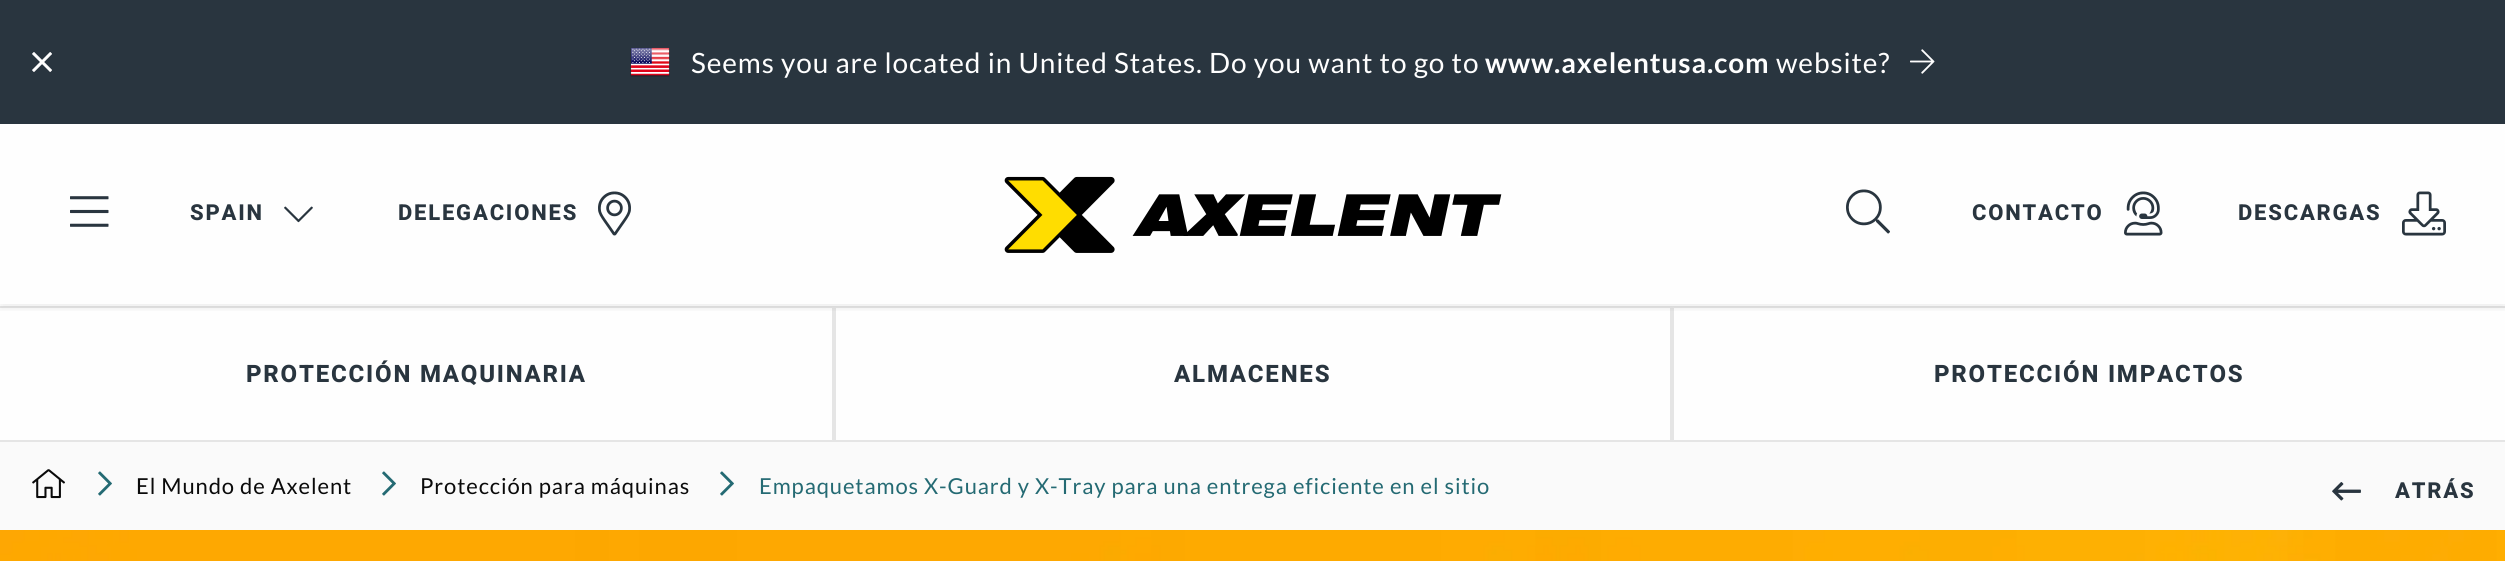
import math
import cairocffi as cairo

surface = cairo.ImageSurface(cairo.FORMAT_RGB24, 2505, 561)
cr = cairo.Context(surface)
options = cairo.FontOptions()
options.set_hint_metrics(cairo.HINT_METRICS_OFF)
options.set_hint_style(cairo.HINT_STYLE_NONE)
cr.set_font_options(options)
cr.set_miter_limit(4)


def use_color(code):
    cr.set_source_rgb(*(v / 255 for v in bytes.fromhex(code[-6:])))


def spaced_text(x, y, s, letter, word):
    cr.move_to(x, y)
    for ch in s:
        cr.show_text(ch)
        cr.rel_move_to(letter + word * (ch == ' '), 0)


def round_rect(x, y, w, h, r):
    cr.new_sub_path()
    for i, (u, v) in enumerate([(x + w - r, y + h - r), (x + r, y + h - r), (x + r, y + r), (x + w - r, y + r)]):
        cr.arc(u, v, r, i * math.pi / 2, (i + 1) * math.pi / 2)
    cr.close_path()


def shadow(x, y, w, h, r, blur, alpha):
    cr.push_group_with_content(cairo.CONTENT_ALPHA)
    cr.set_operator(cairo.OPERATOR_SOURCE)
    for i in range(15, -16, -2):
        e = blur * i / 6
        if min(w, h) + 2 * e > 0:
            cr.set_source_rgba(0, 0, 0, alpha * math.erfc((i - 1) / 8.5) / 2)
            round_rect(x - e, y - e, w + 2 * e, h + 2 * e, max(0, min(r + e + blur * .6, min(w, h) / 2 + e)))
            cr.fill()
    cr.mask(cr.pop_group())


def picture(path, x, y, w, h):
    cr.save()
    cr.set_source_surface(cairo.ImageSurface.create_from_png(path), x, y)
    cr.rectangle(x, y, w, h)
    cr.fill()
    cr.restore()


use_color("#fafafa")
cr.paint()
use_color("#29353f")
cr.rectangle(0, 0, 2505, 124)
cr.fill()
picture("img1.png", 32, 52, 20, 20)
picture("img2.png", 630, 47, 40, 30)
cr.select_font_face("Lato")
cr.set_font_size(28)
use_color("#fefefe")
spaced_text(691, 73, "Seems you are located in United States. Do you want to go to", 0.88, 0)
cr.select_font_face("Lato", cairo.FONT_SLANT_NORMAL, cairo.FONT_WEIGHT_BOLD)
spaced_text(1485, 73, "www.axelentusa.com", 0.88, 0)
cr.select_font_face("Lato")
spaced_text(1776, 73, "website?", 0.88, 0)
picture("img3.png", 1910, 49, 25, 25)
cr.rectangle(0, 124, 2505, 318)
cr.fill()
use_color("#e5e5e5")
cr.new_path()
cr.move_to(0, 306)
cr.line_to(834, 306)
cr.line_to(832, 308)
cr.line_to(0, 308)
cr.close_path()
cr.fill()
cr.set_source_rgba(0, 0, 0, 0.1)
cr.new_path()
cr.move_to(834, 306)
cr.line_to(834, 442)
cr.line_to(832, 440)
cr.line_to(832, 308)
cr.close_path()
cr.fill()
cr.rectangle(835, 307, 836, 134)
use_color("#e5e5e5")
cr.stroke()
cr.new_path()
cr.move_to(1672, 306)
cr.line_to(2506, 306)
cr.line_to(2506, 308)
cr.line_to(1674, 308)
cr.close_path()
cr.fill()
cr.new_path()
cr.move_to(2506, 442)
cr.line_to(1672, 442)
cr.line_to(1674, 440)
cr.line_to(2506, 440)
cr.close_path()
cr.fill()
cr.set_source_rgba(0, 0, 0, 0.1)
cr.new_path()
cr.move_to(1672, 442)
cr.line_to(1672, 306)
cr.line_to(1674, 308)
cr.line_to(1674, 440)
cr.close_path()
cr.fill()
cr.save()
cr.rectangle(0, 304, 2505, 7)
cr.clip()
use_color("#000000")
shadow(0, 130, 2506, 180, 0, 3, 0.05)
cr.restore()
picture("img4.png", 70, 196, 39, 31)
cr.select_font_face("Heebo ExtraBold")
cr.set_font_size(22)
use_color("#29353f")
spaced_text(190, 220, "SPAIN", 1.8, 0)
picture("img5.png", 284, 206, 29, 17)
spaced_text(398, 220, "DELEGACIONES", 1.8, 0)
picture("img6.png", 598, 191, 33, 45)
picture("img7.png", 1004, 176, 498, 77)
picture("img8.png", 1846, 189, 44, 45)
spaced_text(1972, 220, "CONTACTO", 1.8, 0)
picture("img9.png", 2124, 191, 39, 45)
spaced_text(2238, 220, "DESCARGAS", 1.8, 0)
picture("img10.png", 2402, 191, 44, 45)
cr.set_source_rgba(0, 0, 0, 0.1)
cr.new_path()
cr.move_to(834, 442)
cr.line_to(0, 442)
cr.line_to(0, 440)
cr.line_to(832, 440)
cr.close_path()
cr.fill()
cr.set_font_size(24)
use_color("#29353f")
spaced_text(246, 382, "PROTECCIÓN MAQUINARIA", 1.8, 0)
spaced_text(1174, 382, "ALMACENES", 1.8, 0)
spaced_text(1934, 382, "PROTECCIÓN IMPACTOS", 1.8, 0)
picture("img11.png", 32, 469, 33, 30)
picture("img12.png", 98, 471, 14, 25)
cr.select_font_face("Lato")
cr.set_font_size(22)
use_color("#0a0a0a")
spaced_text(136, 494, "El Mundo de Axelent", 0.88, 0)
picture("img12.png", 382, 471, 14, 25)
spaced_text(420, 494, "Protección para máquinas", 0.88, 0)
picture("img12.png", 720, 471, 14, 25)
use_color("#246a73")
spaced_text(759, 494, "Empaquetamos X-Guard y X-Tray para una entrega eficiente en el sitio", 0.88, 0)
picture("img13.png", 2332, 482, 29, 19)
cr.select_font_face("Heebo ExtraBold")
use_color("#29353f")
spaced_text(2395, 498, "ATRÁS", 1.8, 0)
picture("img14.png", 0, 530, 2505, 31)
surface.write_to_png("result.png")
